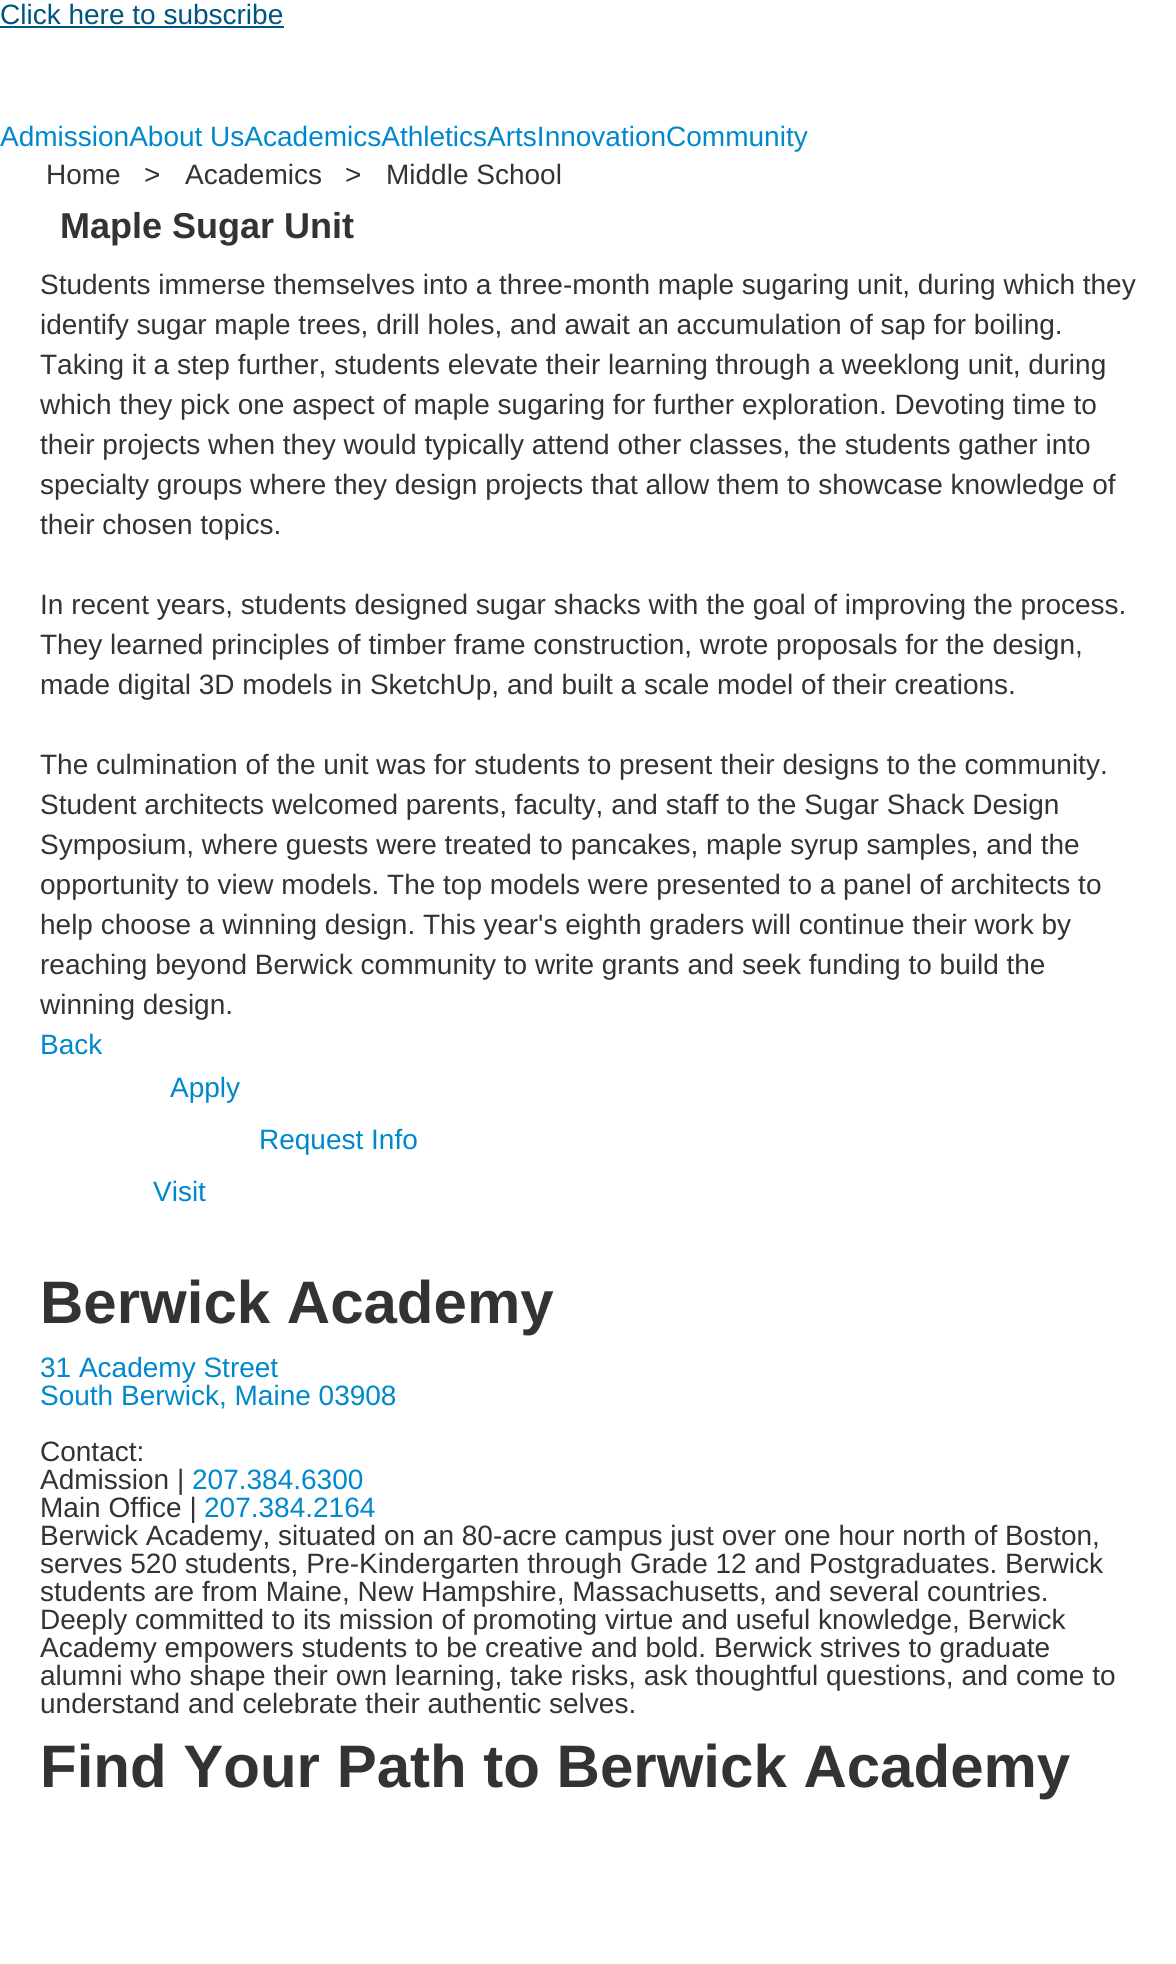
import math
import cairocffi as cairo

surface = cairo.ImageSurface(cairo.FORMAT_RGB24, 1176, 1964)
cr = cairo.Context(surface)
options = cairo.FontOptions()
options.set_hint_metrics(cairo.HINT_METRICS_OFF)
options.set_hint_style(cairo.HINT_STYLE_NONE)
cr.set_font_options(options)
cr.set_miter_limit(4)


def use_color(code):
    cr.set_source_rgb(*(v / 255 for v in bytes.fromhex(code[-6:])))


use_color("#ffffff")
cr.paint()
cr.select_font_face("Liberation Sans")
cr.set_font_size(28)
use_color("#005580")
cr.move_to(0, 24)
cr.show_text("Click here to subscribe")
cr.rectangle(0, 26, 284, 2)
cr.fill()
use_color("#0088cc")
cr.move_to(0, 146)
cr.show_text("AdmissionAbout UsAcademicsAthleticsArtsInnovationCommunity")
use_color("#333333")
cr.move_to(46, 184)
cr.show_text("Home")
cr.move_to(144, 184)
cr.show_text(">")
cr.move_to(185, 184)
cr.show_text("Academics")
cr.move_to(345, 184)
cr.show_text(">")
cr.move_to(386, 184)
cr.show_text("Middle School")
cr.select_font_face("Liberation Sans", cairo.FONT_SLANT_NORMAL, cairo.FONT_WEIGHT_BOLD)
cr.set_font_size(36)
cr.move_to(60, 238)
cr.show_text("Maple Sugar Unit")
cr.select_font_face("Liberation Sans")
cr.set_font_size(28)
cr.move_to(40, 294)
cr.show_text("Students immerse themselves into a three-month maple sugaring unit, during which they")
cr.move_to(40, 334)
cr.show_text("identify sugar maple trees, drill holes, and await an accumulation of sap for boiling.")
cr.move_to(40, 374)
cr.show_text("Taking it a step further, students elevate their learning through a weeklong unit, during")
cr.move_to(40, 414)
cr.show_text("which they pick one aspect of maple sugaring for further exploration. Devoting time to")
cr.move_to(40, 454)
cr.show_text("their projects when they would typically attend other classes, the students gather into")
cr.move_to(40, 494)
cr.show_text("specialty groups where they design projects that allow them to showcase knowledge of")
cr.move_to(40, 534)
cr.show_text("their chosen topics.")
cr.move_to(40, 614)
cr.show_text("In recent years, students designed sugar shacks with the goal of improving the process.")
cr.move_to(40, 654)
cr.show_text("They learned principles of timber frame construction, wrote proposals for the design,")
cr.move_to(40, 694)
cr.show_text("made digital 3D models in SketchUp, and built a scale model of their creations.")
cr.move_to(40, 774)
cr.show_text("The culmination of the unit was for students to present their designs to the community.")
cr.move_to(40, 814)
cr.show_text("Student architects welcomed parents, faculty, and staff to the Sugar Shack Design")
cr.move_to(40, 854)
cr.show_text("Symposium, where guests were treated to pancakes, maple syrup samples, and the")
cr.move_to(40, 894)
cr.show_text("opportunity to view models. The top models were presented to a panel of architects to")
cr.move_to(40, 934)
cr.show_text("help choose a winning design. This year's eighth graders will continue their work by")
cr.move_to(40, 974)
cr.show_text("reaching beyond Berwick community to write grants and seek funding to build the")
cr.move_to(40, 1014)
cr.show_text("winning design.")
use_color("#0088cc")
cr.move_to(40, 1054)
cr.show_text("Back")
cr.move_to(170, 1097)
cr.show_text("Apply")
cr.move_to(259, 1149)
cr.show_text("Request Info")
cr.move_to(153, 1201)
cr.show_text("Visit")
cr.select_font_face("Liberation Sans", cairo.FONT_SLANT_NORMAL, cairo.FONT_WEIGHT_BOLD)
cr.set_font_size(60)
use_color("#333333")
cr.move_to(40, 1323)
cr.show_text("Berwick Academy")
cr.select_font_face("Liberation Sans")
cr.set_font_size(28)
use_color("#0088cc")
cr.move_to(40, 1377)
cr.show_text("31 Academy Street")
cr.move_to(40, 1405)
cr.show_text("South Berwick, Maine 03908")
use_color("#333333")
cr.move_to(40, 1461)
cr.show_text("Contact:")
cr.move_to(40, 1489)
cr.show_text("Admission |")
use_color("#0088cc")
cr.move_to(192, 1489)
cr.show_text("207.384.6300")
use_color("#333333")
cr.move_to(40, 1517)
cr.show_text("Main Office |")
use_color("#0088cc")
cr.move_to(204, 1517)
cr.show_text("207.384.2164")
use_color("#333333")
cr.move_to(40, 1545)
cr.show_text("Berwick Academy, situated on an 80-acre campus just over one hour north of Boston,")
cr.move_to(40, 1573)
cr.show_text("serves 520 students, Pre-Kindergarten through Grade 12 and Postgraduates. Berwick")
cr.move_to(40, 1601)
cr.show_text("students are from Maine, New Hampshire, Massachusetts, and several countries.")
cr.move_to(40, 1629)
cr.show_text("Deeply committed to its mission of promoting virtue and useful knowledge, Berwick")
cr.move_to(40, 1657)
cr.show_text("Academy empowers students to be creative and bold. Berwick strives to graduate")
cr.move_to(40, 1685)
cr.show_text("alumni who shape their own learning, take risks, ask thoughtful questions, and come to")
cr.move_to(40, 1713)
cr.show_text("understand and celebrate their authentic selves.")
cr.select_font_face("Liberation Sans", cairo.FONT_SLANT_NORMAL, cairo.FONT_WEIGHT_BOLD)
cr.set_font_size(60)
cr.move_to(40, 1787)
cr.show_text("Find Your Path to Berwick Academy")
surface.write_to_png("result.png")
